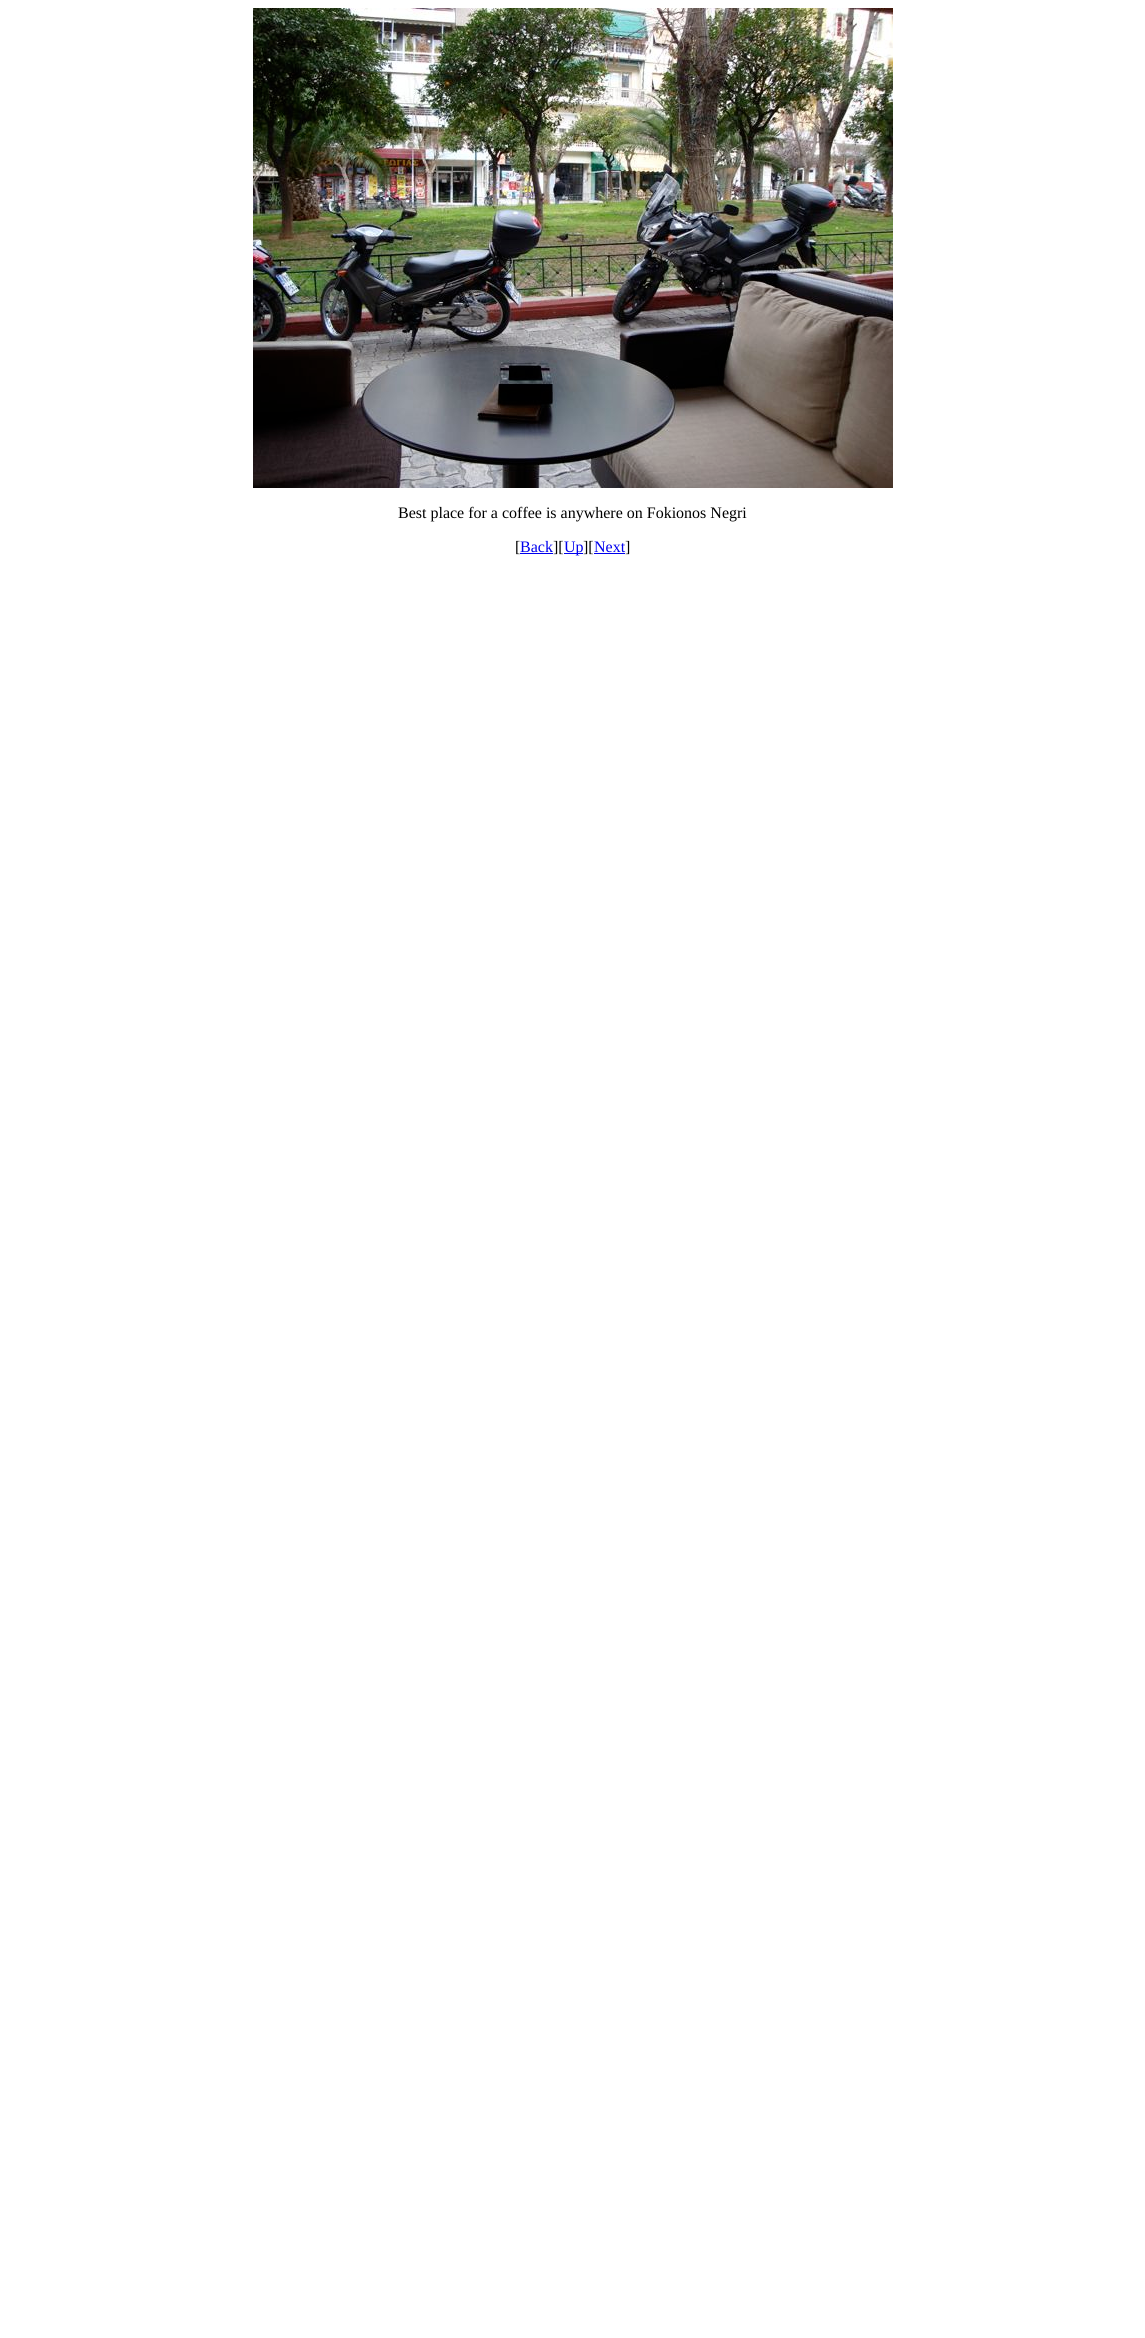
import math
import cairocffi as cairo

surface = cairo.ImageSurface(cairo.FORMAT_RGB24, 1145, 2338)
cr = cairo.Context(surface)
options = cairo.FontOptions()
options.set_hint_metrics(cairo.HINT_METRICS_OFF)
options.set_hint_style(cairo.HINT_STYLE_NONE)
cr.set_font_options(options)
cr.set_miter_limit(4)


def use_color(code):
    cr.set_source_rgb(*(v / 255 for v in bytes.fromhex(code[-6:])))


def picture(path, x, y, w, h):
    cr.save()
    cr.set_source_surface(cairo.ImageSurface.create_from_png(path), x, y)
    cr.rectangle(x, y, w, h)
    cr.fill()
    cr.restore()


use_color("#ffffff")
cr.paint()
picture("img1.png", 253, 8, 640, 480)
cr.select_font_face("Liberation Serif")
cr.set_font_size(16)
use_color("#000000")
cr.move_to(398, 518)
cr.show_text("Best place for a coffee is anywhere on Fokionos Negri")
cr.move_to(515, 552)
cr.show_text("[")
use_color("#0000ee")
cr.move_to(520, 552)
cr.show_text("Back")
cr.rectangle(520, 553, 33, 1)
cr.fill()
use_color("#000000")
cr.move_to(553, 552)
cr.show_text("][")
use_color("#0000ee")
cr.rectangle(564, 553, 19, 1)
cr.fill()
cr.move_to(564, 552)
cr.show_text("Up")
use_color("#000000")
cr.move_to(583, 552)
cr.show_text("][")
use_color("#0000ee")
cr.move_to(594, 552)
cr.show_text("Next")
cr.rectangle(594, 553, 31, 1)
cr.fill()
use_color("#000000")
cr.move_to(625, 552)
cr.show_text("]")
surface.write_to_png("result.png")
